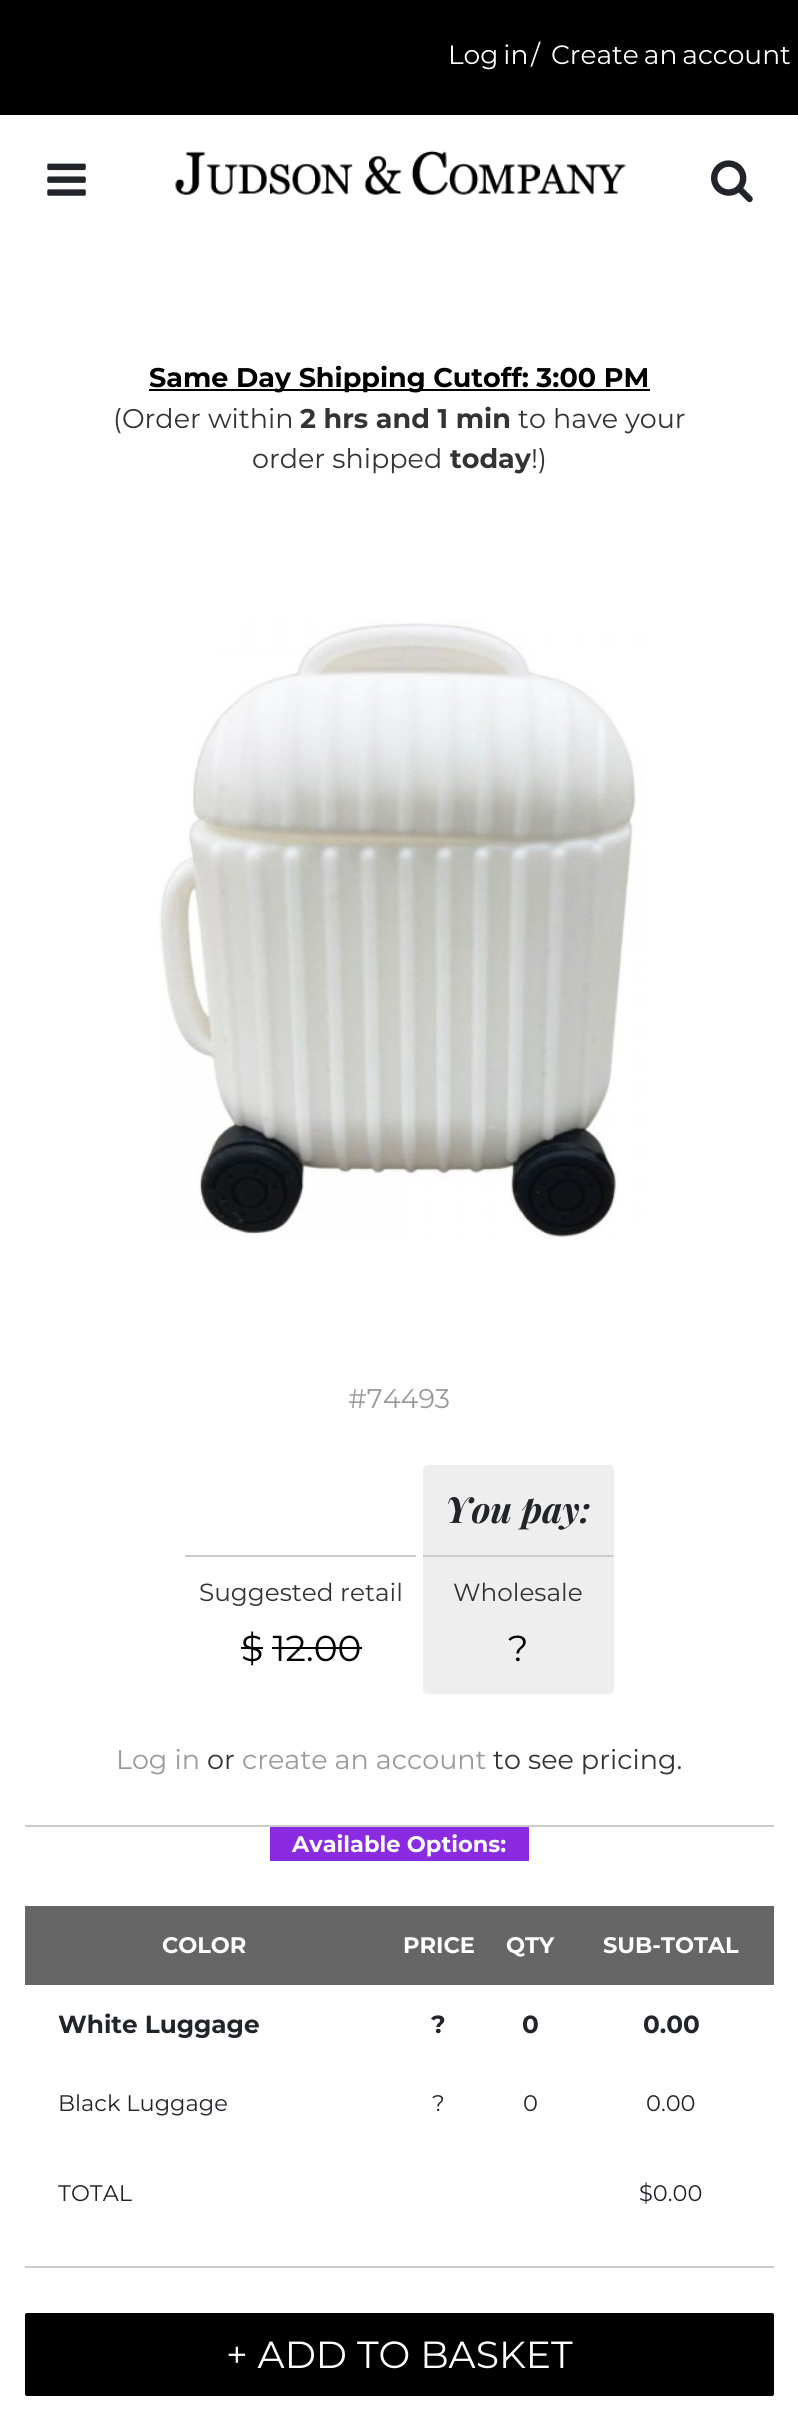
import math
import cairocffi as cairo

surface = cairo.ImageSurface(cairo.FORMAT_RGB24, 798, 2411)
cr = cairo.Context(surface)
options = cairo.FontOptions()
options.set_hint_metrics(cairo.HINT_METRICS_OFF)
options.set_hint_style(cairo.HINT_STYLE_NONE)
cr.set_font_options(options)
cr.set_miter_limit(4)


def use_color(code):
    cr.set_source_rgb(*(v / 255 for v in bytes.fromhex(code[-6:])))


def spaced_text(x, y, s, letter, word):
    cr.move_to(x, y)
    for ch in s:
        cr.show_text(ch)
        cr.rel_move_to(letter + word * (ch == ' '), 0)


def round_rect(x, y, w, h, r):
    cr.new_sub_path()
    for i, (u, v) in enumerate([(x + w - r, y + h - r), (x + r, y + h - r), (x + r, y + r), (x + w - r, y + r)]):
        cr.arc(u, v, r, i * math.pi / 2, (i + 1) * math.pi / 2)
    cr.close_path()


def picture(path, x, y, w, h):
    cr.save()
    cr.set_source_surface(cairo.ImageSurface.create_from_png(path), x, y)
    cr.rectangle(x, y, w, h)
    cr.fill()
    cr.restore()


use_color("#ffffff")
cr.paint()
use_color("#000000")
cr.rectangle(0, 0, 798, 115)
cr.fill()
cr.select_font_face("Montserrat")
cr.set_font_size(26.5)
use_color("#ffffff")
spaced_text(448, 64, "Log in", 0, -2)
cr.move_to(531, 64)
cr.show_text("/")
spaced_text(551, 64, "Create an account", 0, -2)
picture("img1.png", 47, 163, 39, 33)
picture("img2.png", 175, 150, 451, 45)
picture("img3.png", 711, 160, 42, 43)
use_color("#000000")
cr.rectangle(149, 389, 501, 2)
cr.fill()
cr.select_font_face("Montserrat", cairo.FONT_SLANT_NORMAL, cairo.FONT_WEIGHT_BOLD)
cr.set_font_size(27)
cr.move_to(149, 387)
cr.show_text("Same Day Shipping Cutoff: 3:00 PM")
cr.select_font_face("Montserrat")
use_color("#333333")
cr.move_to(113, 428)
cr.show_text("(Order within")
cr.select_font_face("Montserrat", cairo.FONT_SLANT_NORMAL, cairo.FONT_WEIGHT_BOLD)
cr.move_to(300, 428)
cr.show_text("2 hrs and 1 min")
cr.select_font_face("Montserrat")
cr.move_to(518, 428)
cr.show_text("to have your")
cr.move_to(252, 468)
cr.show_text("order shipped")
cr.select_font_face("Montserrat", cairo.FONT_SLANT_NORMAL, cairo.FONT_WEIGHT_BOLD)
cr.move_to(450, 468)
cr.show_text("today")
cr.select_font_face("Montserrat")
cr.move_to(531, 468)
cr.show_text("!)")
picture("img4.png", 158, 620, 486, 619)
use_color("#999999")
cr.move_to(348, 1408)
cr.show_text("#74493")
use_color("#cccccc")
cr.rectangle(185, 1555, 231, 2)
cr.fill()
cr.set_font_size(24.75)
use_color("#333333")
cr.move_to(199, 1601)
cr.show_text("Suggested retail")
cr.set_font_size(36)
use_color("#000000")
cr.move_to(241, 1661)
cr.show_text("$ 12.00")
cr.rectangle(241, 1647, 22, 2)
cr.fill()
cr.rectangle(272, 1647, 90, 2)
cr.fill()
use_color("#eeeeee")
cr.new_path()
cr.move_to(428, 1465)
cr.line_to(609, 1465)
cr.curve_to(612, 1465, 614, 1467, 614, 1470)
cr.line_to(614, 1555)
cr.line_to(423, 1555)
cr.line_to(423, 1470)
cr.curve_to(423, 1467, 425, 1465, 428, 1465)
cr.close_path()
cr.fill()
cr.select_font_face("Playfair Display", cairo.FONT_SLANT_ITALIC, cairo.FONT_WEIGHT_BOLD)
use_color("#212529")
cr.move_to(445, 1523)
cr.show_text("You pay:")
use_color("#eeeeee")
cr.new_path()
cr.move_to(423, 1555)
cr.line_to(614, 1555)
cr.line_to(614, 1689)
cr.curve_to(614, 1692, 612, 1694, 609, 1694)
cr.line_to(428, 1694)
cr.curve_to(425, 1694, 423, 1692, 423, 1689)
cr.close_path()
cr.fill()
use_color("#cccccc")
cr.rectangle(423, 1555, 191, 2)
cr.fill()
cr.select_font_face("Montserrat")
cr.set_font_size(24.75)
use_color("#333333")
cr.move_to(453, 1601)
cr.show_text("Wholesale")
cr.set_font_size(36)
use_color("#000000")
cr.move_to(508, 1661)
cr.show_text("?")
cr.set_font_size(27)
use_color("#999999")
cr.move_to(116, 1769)
cr.show_text("Log in")
use_color("#333333")
cr.move_to(207, 1769)
cr.show_text("or")
use_color("#999999")
cr.move_to(242, 1769)
cr.show_text("create an account")
use_color("#333333")
cr.move_to(493, 1769)
cr.show_text("to see pricing.")
use_color("#cccccc")
cr.rectangle(25, 1825, 749, 2)
cr.fill()
cr.rectangle(25, 2266, 749, 2)
cr.fill()
use_color("#8a2be2")
cr.rectangle(270, 1827, 259, 34)
cr.fill()
cr.select_font_face("Montserrat", cairo.FONT_SLANT_NORMAL, cairo.FONT_WEIGHT_BOLD)
cr.set_font_size(22.5)
use_color("#ffffff")
cr.move_to(292, 1852)
cr.show_text("Available Options:")
use_color("#666666")
cr.rectangle(25, 1906, 749, 79)
cr.fill()
use_color("#ffffff")
cr.move_to(162, 1953)
cr.show_text("COLOR")
cr.move_to(403, 1953)
cr.show_text("PRICE")
cr.move_to(506, 1953)
cr.show_text("QTY")
cr.move_to(603, 1953)
cr.show_text("SUB-TOTAL")
cr.set_font_size(24.75)
use_color("#212529")
cr.move_to(58, 2033)
cr.show_text("White Luggage")
cr.move_to(431, 2033)
cr.show_text("?")
cr.move_to(522, 2033)
cr.show_text("0")
cr.move_to(643, 2033)
cr.show_text("0.00")
cr.select_font_face("Montserrat")
cr.set_font_size(22.5)
cr.move_to(58, 2111)
cr.show_text("Black Luggage")
cr.move_to(432, 2111)
cr.show_text("?")
cr.move_to(523, 2111)
cr.show_text("0")
cr.move_to(646, 2111)
cr.show_text("0.00")
cr.move_to(58, 2201)
cr.show_text("TOTAL")
cr.move_to(639, 2201)
cr.show_text("$0.00")
use_color("#000000")
round_rect(25, 2313, 749, 83, 2)
cr.fill()
cr.set_font_size(37.75)
use_color("#ffffff")
cr.move_to(226, 2368)
cr.show_text("+ ADD TO BASKET")
surface.write_to_png("result.png")
